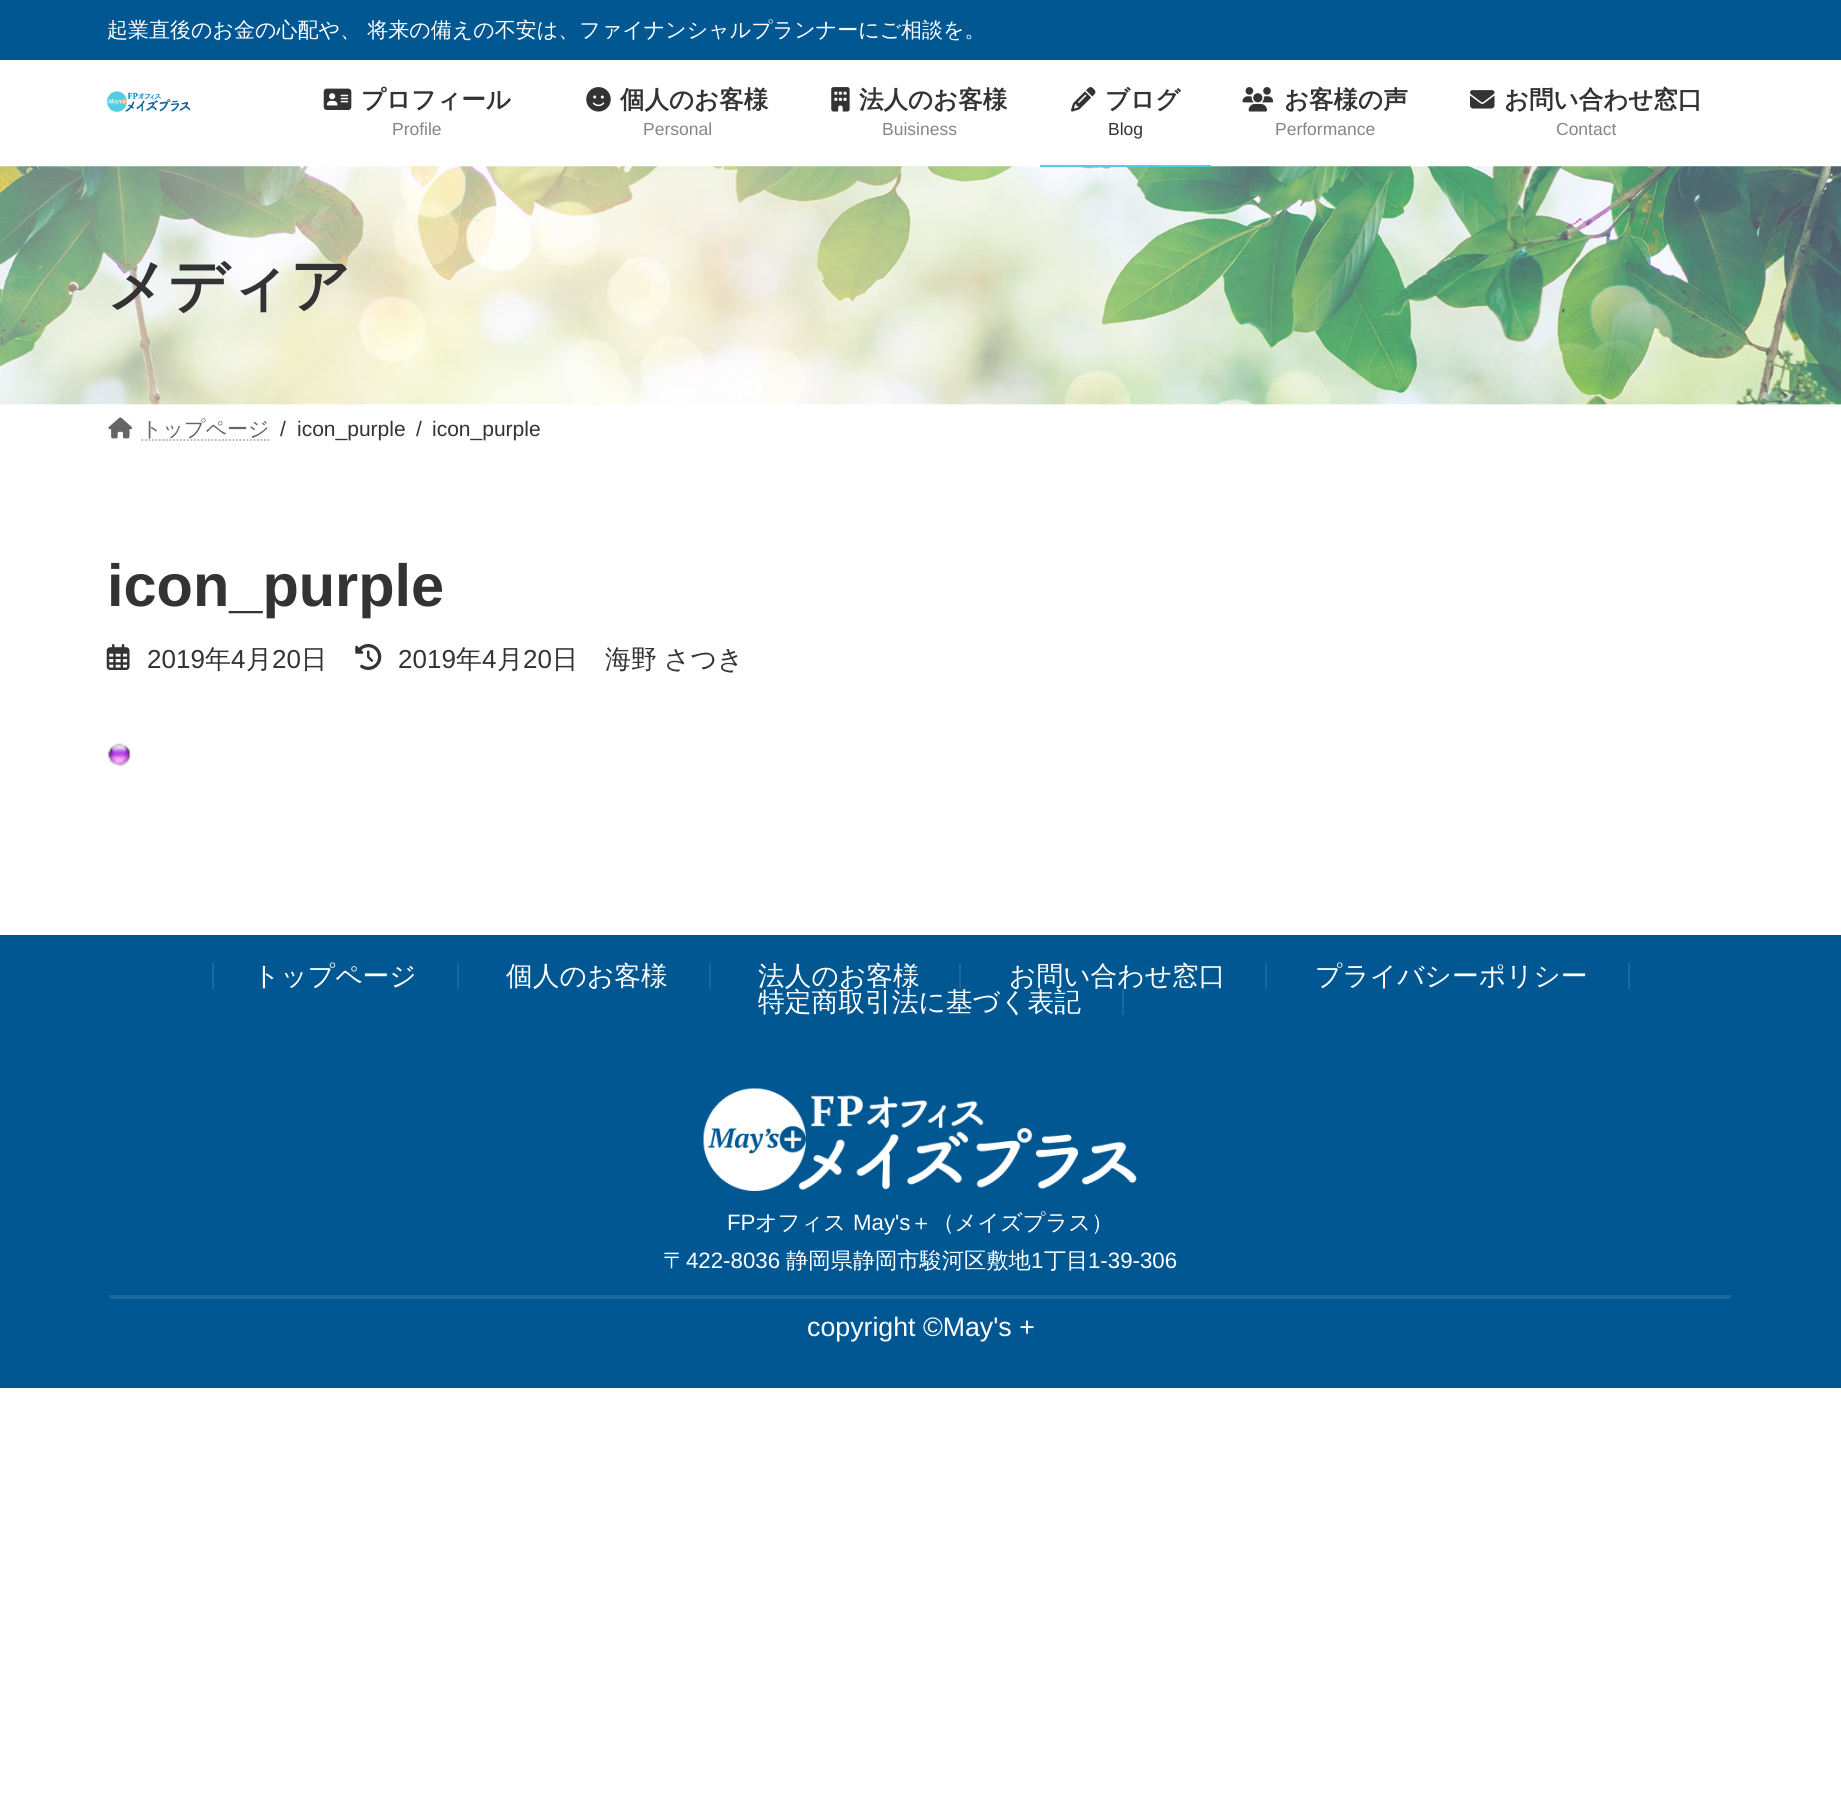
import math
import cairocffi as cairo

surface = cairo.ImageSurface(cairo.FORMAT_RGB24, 1841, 1793)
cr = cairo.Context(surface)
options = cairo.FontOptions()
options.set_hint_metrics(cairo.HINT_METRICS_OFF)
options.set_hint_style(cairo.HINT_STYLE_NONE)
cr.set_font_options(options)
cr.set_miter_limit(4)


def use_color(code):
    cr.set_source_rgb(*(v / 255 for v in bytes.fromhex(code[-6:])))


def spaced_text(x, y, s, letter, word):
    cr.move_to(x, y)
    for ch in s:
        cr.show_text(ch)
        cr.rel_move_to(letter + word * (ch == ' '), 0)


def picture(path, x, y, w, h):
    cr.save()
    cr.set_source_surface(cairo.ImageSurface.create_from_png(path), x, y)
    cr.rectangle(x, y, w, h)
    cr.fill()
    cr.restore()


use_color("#ffffff")
cr.paint()
use_color("#005792")
cr.rectangle(0, 0, 1841, 60)
cr.fill()
cr.select_font_face("WenQuanYi Zen Hei Medium")
cr.set_font_size(21)
use_color("#ffffff")
cr.move_to(107, 37)
cr.show_text("起業直後のお金の心配や、 将来の備えの不安は、ファイナンシャルプランナーにご相談を。")
picture("img1.png", 106, 91, 85, 21)
picture("img2.png", 323, 88, 29, 22)
cr.select_font_face("WenQuanYi Zen Hei", cairo.FONT_SLANT_NORMAL, cairo.FONT_WEIGHT_BOLD)
cr.set_font_size(24.5)
use_color("#333333")
cr.move_to(361, 108)
cr.show_text("プロフィール")
cr.select_font_face("Liberation Sans")
cr.set_font_size(17.5)
use_color("#858585")
cr.move_to(392, 135)
cr.show_text("Profile")
picture("img3.png", 586, 87, 25, 25)
cr.select_font_face("WenQuanYi Zen Hei", cairo.FONT_SLANT_NORMAL, cairo.FONT_WEIGHT_BOLD)
cr.set_font_size(24.5)
use_color("#333333")
cr.move_to(620, 108)
cr.show_text("個人のお客様")
cr.select_font_face("Liberation Sans")
cr.set_font_size(17.5)
use_color("#858585")
cr.move_to(643, 135)
cr.show_text("Personal")
picture("img4.png", 831, 87, 19, 25)
cr.select_font_face("WenQuanYi Zen Hei", cairo.FONT_SLANT_NORMAL, cairo.FONT_WEIGHT_BOLD)
cr.set_font_size(24.5)
use_color("#333333")
cr.move_to(859, 108)
cr.show_text("法人のお客様")
cr.select_font_face("Liberation Sans")
cr.set_font_size(17.5)
use_color("#858585")
cr.move_to(882, 135)
cr.show_text("Buisiness")
picture("img5.png", 1071, 87, 25, 25)
cr.select_font_face("WenQuanYi Zen Hei", cairo.FONT_SLANT_NORMAL, cairo.FONT_WEIGHT_BOLD)
cr.set_font_size(24.5)
use_color("#333333")
cr.move_to(1105, 108)
cr.show_text("ブログ")
cr.select_font_face("Liberation Sans")
cr.set_font_size(17.5)
cr.move_to(1108, 135)
cr.show_text("Blog")
picture("img8.png", 0, 166, 1841, 239)
use_color("#53cde2")
cr.rectangle(1040, 165, 171, 2)
cr.fill()
picture("img6.png", 1242, 87, 32, 25)
cr.select_font_face("WenQuanYi Zen Hei", cairo.FONT_SLANT_NORMAL, cairo.FONT_WEIGHT_BOLD)
cr.set_font_size(24.5)
use_color("#333333")
cr.move_to(1284, 108)
cr.show_text("お客様の声")
cr.select_font_face("Liberation Sans")
cr.set_font_size(17.5)
use_color("#858585")
cr.move_to(1275, 135)
cr.show_text("Performance")
picture("img7.png", 1470, 90, 25, 19)
cr.select_font_face("WenQuanYi Zen Hei", cairo.FONT_SLANT_NORMAL, cairo.FONT_WEIGHT_BOLD)
cr.set_font_size(24.5)
use_color("#333333")
cr.move_to(1504, 108)
cr.show_text("お問い合わせ窓口")
cr.select_font_face("Liberation Sans")
cr.set_font_size(17.5)
use_color("#858585")
cr.move_to(1556, 135)
cr.show_text("Contact")
cr.select_font_face("WenQuanYi Zen Hei", cairo.FONT_SLANT_NORMAL, cairo.FONT_WEIGHT_BOLD)
cr.set_font_size(59.5)
use_color("#333333")
cr.move_to(107, 306)
cr.show_text("メディア")
picture("img9.png", 108, 417, 25, 22)
cr.select_font_face("WenQuanYi Zen Hei Medium")
cr.set_font_size(21)
use_color("#666666")
cr.move_to(141, 436)
cr.show_text("トップページ")
cr.new_path()
cr.move_to(141.5, 440)
cr.line_to(270, 440)
use_color("#b3b3b3")
cr.set_line_width(1.8)
cr.set_dash([1.75, 1.75])
cr.stroke()
cr.select_font_face("Liberation Sans")
use_color("#333333")
cr.move_to(280, 436)
cr.show_text("/")
cr.move_to(297, 436)
cr.show_text("icon_purple")
cr.move_to(416, 436)
cr.show_text("/")
cr.move_to(432, 436)
cr.show_text("icon_purple")
cr.select_font_face("Liberation Sans", cairo.FONT_SLANT_NORMAL, cairo.FONT_WEIGHT_BOLD)
cr.set_font_size(59.5)
cr.move_to(107, 606)
cr.show_text("icon_purple")
picture("img10.png", 106, 644, 24, 26)
cr.select_font_face("Liberation Sans")
cr.set_font_size(26)
cr.move_to(147, 668)
cr.show_text("2019")
cr.select_font_face("WenQuanYi Zen Hei Medium")
cr.move_to(205, 668)
cr.show_text("年")
cr.select_font_face("Liberation Sans")
cr.move_to(231, 668)
cr.show_text("4")
cr.select_font_face("WenQuanYi Zen Hei Medium")
cr.move_to(246, 668)
cr.show_text("月")
cr.select_font_face("Liberation Sans")
cr.move_to(272, 668)
cr.show_text("20")
cr.select_font_face("WenQuanYi Zen Hei Medium")
cr.move_to(301, 668)
cr.show_text("日")
picture("img11.png", 355, 644, 27, 26)
cr.select_font_face("Liberation Sans")
cr.move_to(398, 668)
cr.show_text("2019")
cr.select_font_face("WenQuanYi Zen Hei Medium")
cr.move_to(456, 668)
cr.show_text("年")
cr.select_font_face("Liberation Sans")
cr.move_to(482, 668)
cr.show_text("4")
cr.select_font_face("WenQuanYi Zen Hei Medium")
cr.move_to(497, 668)
cr.show_text("月")
cr.select_font_face("Liberation Sans")
cr.move_to(523, 668)
cr.show_text("20")
cr.select_font_face("WenQuanYi Zen Hei Medium")
cr.move_to(552, 668)
cr.show_text("日")
spaced_text(605, 668, "海野 さつき", 0, -1)
picture("img12.png", 107, 743, 25, 24)
use_color("#005792")
cr.rectangle(0, 935, 1841, 453)
cr.fill()
use_color("#1a689d")
cr.rectangle(457, 963, 2, 26)
cr.fill()
cr.rectangle(212, 963, 2, 26)
cr.fill()
cr.set_font_size(26.75)
use_color("#ffffff")
cr.move_to(253, 985)
cr.show_text("トップページ")
use_color("#1a689d")
cr.rectangle(709, 963, 2, 26)
cr.fill()
use_color("#ffffff")
cr.move_to(506, 985)
cr.show_text("個人のお客様")
use_color("#1a689d")
cr.rectangle(959, 963, 2, 26)
cr.fill()
use_color("#ffffff")
cr.move_to(758, 985)
cr.show_text("法人のお客様")
use_color("#1a689d")
cr.rectangle(1265, 963, 2, 26)
cr.fill()
use_color("#ffffff")
cr.move_to(1009, 985)
cr.show_text("お問い合わせ窓口")
use_color("#1a689d")
cr.rectangle(1628, 963, 2, 26)
cr.fill()
use_color("#ffffff")
cr.move_to(1315, 985)
cr.show_text("プライバシーポリシー")
use_color("#1a689d")
cr.rectangle(1122, 989, 2, 26)
cr.fill()
use_color("#ffffff")
cr.move_to(758, 1011)
cr.show_text("特定商取引法に基づく表記")
picture("img13.png", 703, 1088, 434, 103)
cr.select_font_face("Liberation Sans")
cr.set_font_size(22.25)
cr.move_to(727, 1230)
cr.show_text("FP")
cr.select_font_face("WenQuanYi Zen Hei Medium")
cr.move_to(755, 1230)
cr.show_text("オフィス")
cr.select_font_face("Liberation Sans")
cr.move_to(853, 1230)
cr.show_text("May's")
cr.select_font_face("WenQuanYi Zen Hei Medium")
cr.move_to(910, 1230)
cr.show_text("＋（メイズプラス）")
cr.move_to(663, 1268)
cr.show_text("〒")
cr.select_font_face("Liberation Sans")
cr.move_to(686, 1268)
cr.show_text("422-8036")
cr.select_font_face("WenQuanYi Zen Hei Medium")
cr.move_to(786, 1268)
cr.show_text("静岡県静岡市駿河区敷地")
cr.select_font_face("Liberation Sans")
cr.move_to(1031, 1268)
cr.show_text("1")
cr.select_font_face("WenQuanYi Zen Hei Medium")
cr.move_to(1044, 1268)
cr.show_text("丁目")
cr.select_font_face("Liberation Sans")
cr.move_to(1088, 1268)
cr.show_text("1-39-306")
use_color("#1a689d")
cr.rectangle(110, 1295, 1621, 4)
cr.fill()
cr.set_font_size(26.75)
use_color("#ffffff")
cr.move_to(807, 1336)
cr.show_text("copyright ©May's +")
surface.write_to_png("result.png")
